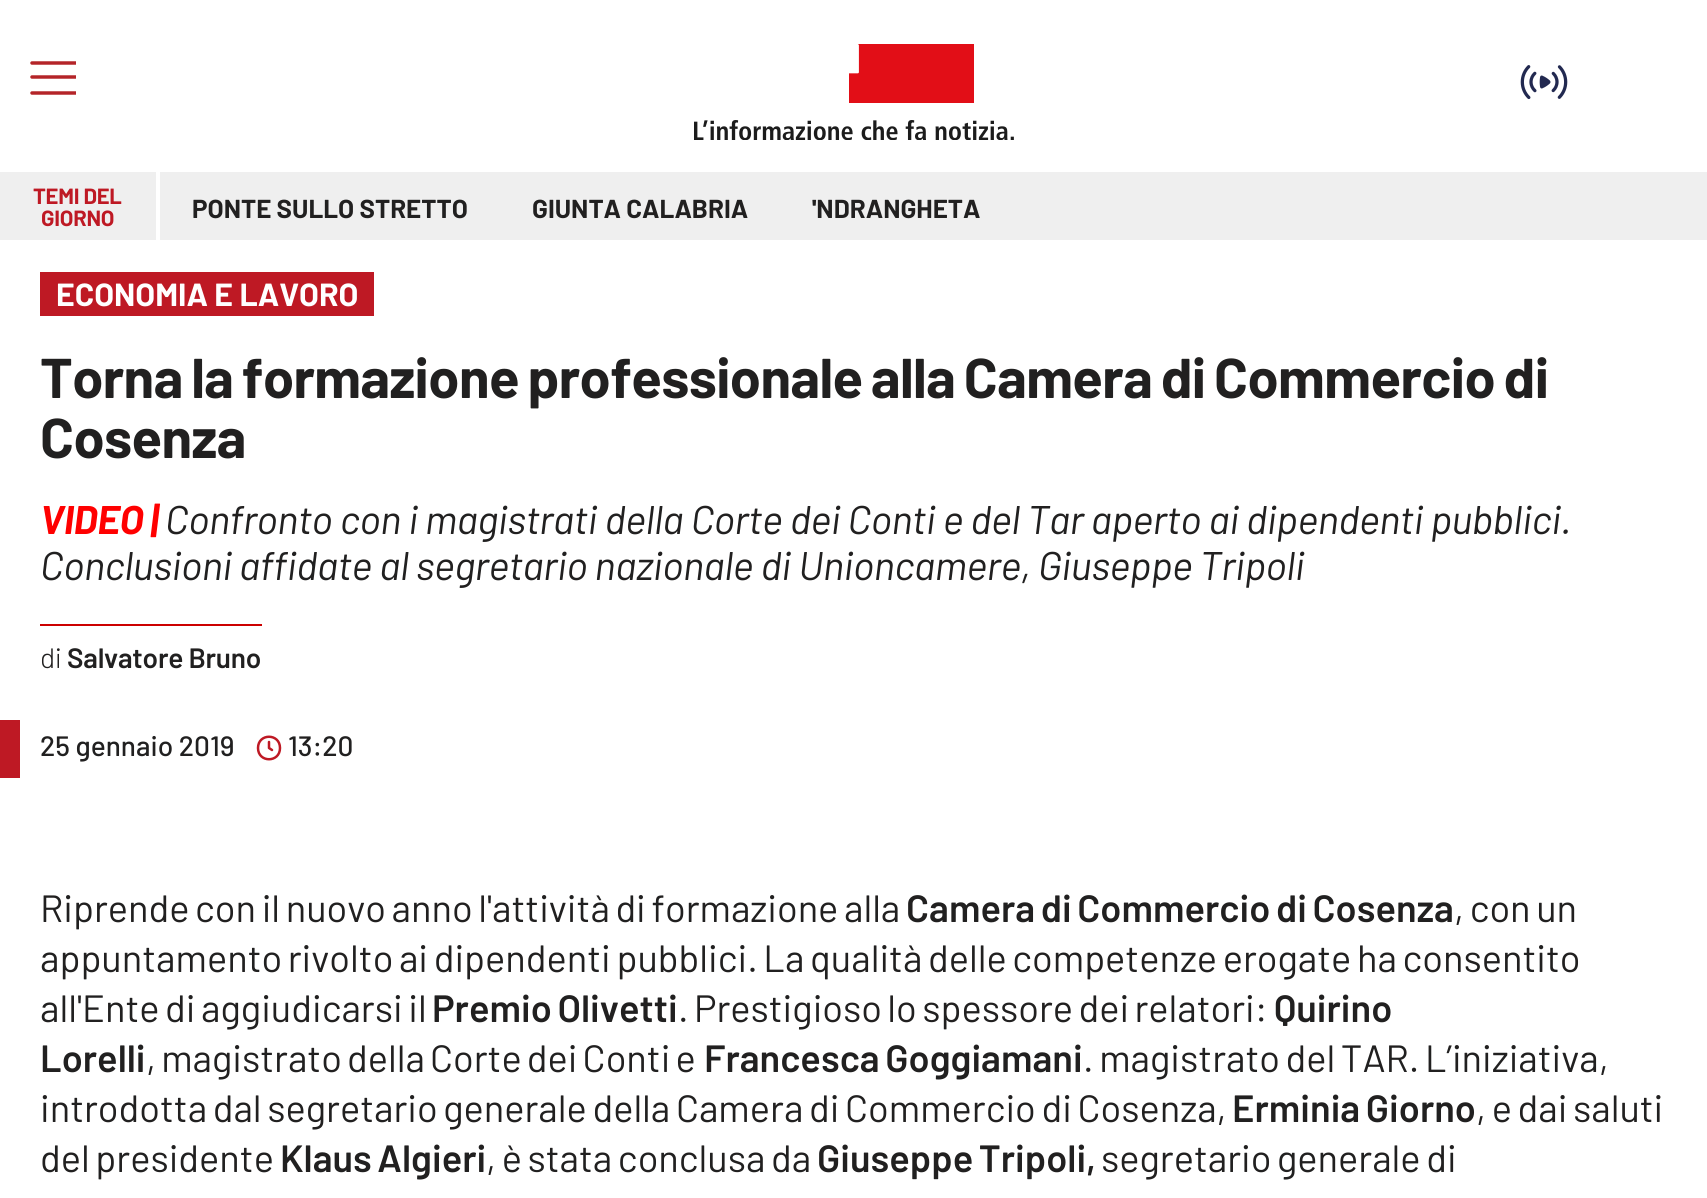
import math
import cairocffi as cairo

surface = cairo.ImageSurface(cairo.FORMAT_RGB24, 1707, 1198)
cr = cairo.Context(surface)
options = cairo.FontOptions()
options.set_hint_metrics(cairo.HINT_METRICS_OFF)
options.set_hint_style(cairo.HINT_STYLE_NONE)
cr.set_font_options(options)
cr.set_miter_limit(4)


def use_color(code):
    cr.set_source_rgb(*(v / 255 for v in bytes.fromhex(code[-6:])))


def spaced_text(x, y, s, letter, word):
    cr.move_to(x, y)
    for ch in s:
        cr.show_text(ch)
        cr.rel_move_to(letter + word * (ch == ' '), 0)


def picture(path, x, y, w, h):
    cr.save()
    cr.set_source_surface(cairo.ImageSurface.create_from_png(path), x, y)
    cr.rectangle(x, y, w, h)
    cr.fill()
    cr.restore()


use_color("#ffffff")
cr.paint()
picture("img1.png", 849, 44, 125, 59)
picture("img2.png", 694, 120, 320, 20)
picture("img3.png", 1520, 65, 48, 35)
cr.save()
cr.rectangle(30, 56, 46, 46)
cr.clip()
cr.new_path()
cr.move_to(32, 63)
cr.line_to(76, 63)
cr.move_to(32, 77)
cr.line_to(76, 77)
cr.move_to(32, 93)
cr.line_to(76, 93)
use_color("#b42428")
cr.set_line_width(3.5)
cr.set_line_cap(cairo.LINE_CAP_ROUND)
cr.stroke()
cr.restore()
use_color("#efefef")
cr.rectangle(0, 172, 156, 68)
cr.fill()
cr.select_font_face("Barlow", cairo.FONT_SLANT_NORMAL, cairo.FONT_WEIGHT_BOLD)
cr.set_font_size(22)
use_color("#be1924")
spaced_text(33, 204, "TEMI DEL", -0.25, 0)
spaced_text(41, 226, "GIORNO", -0.25, 0)
use_color("#efefef")
cr.rectangle(160, 172, 1547, 68)
cr.fill()
cr.set_font_size(26)
use_color("#212020")
cr.move_to(192, 218)
cr.show_text("PONTE SULLO STRETTO")
cr.move_to(532, 218)
cr.show_text("GIUNTA CALABRIA")
cr.move_to(812, 218)
cr.show_text("'NDRANGHETA")
use_color("#be1924")
cr.rectangle(40, 272, 334, 44)
cr.fill()
cr.set_font_size(32)
use_color("#ffffff")
cr.move_to(56, 306)
cr.show_text("ECONOMIA E LAVORO")
cr.set_font_size(56)
use_color("#212020")
spaced_text(40, 398, "Torna la formazione professionale alla Camera di Commercio di", -0.6, -2)
spaced_text(40, 458, "Cosenza", -0.6, 0)
cr.select_font_face("Barlow", cairo.FONT_SLANT_ITALIC, cairo.FONT_WEIGHT_BOLD)
cr.set_font_size(40)
use_color("#ff0000")
spaced_text(40, 534, "VIDEO |", -0.4, 0)
cr.select_font_face("Barlow", cairo.FONT_SLANT_ITALIC)
use_color("#212020")
spaced_text(165, 534, "Confronto con i magistrati della Corte dei Conti e del Tar aperto ai dipendenti pubblici.", -0.4, 0)
spaced_text(40, 580, "Conclusioni affidate al segretario nazionale di Unioncamere, Giuseppe Tripoli", -0.4, 0)
use_color("#cc0000")
cr.rectangle(40, 624, 222, 2)
cr.fill()
cr.select_font_face("Barlow Light")
cr.set_font_size(28)
use_color("#212020")
spaced_text(40, 668, "di", -0.4, 0)
cr.select_font_face("Barlow SemiBold")
spaced_text(67, 668, "Salvatore Bruno", -0.25, 0)
use_color("#be1924")
cr.rectangle(0, 720, 20, 58)
cr.fill()
cr.select_font_face("Barlow Medium")
use_color("#212020")
cr.move_to(40, 756)
cr.show_text("25 gennaio 2019")
cr.new_path()
cr.move_to(269, 742)
cr.line_to(269, 748)
cr.line_to(272, 750)
cr.move_to(280, 748)
cr.curve_to(280, 763, 258, 763, 258, 748)
cr.curve_to(258, 733, 280, 733, 280, 748)
cr.close_path()
use_color("#be1924")
cr.set_line_width(2.5)
cr.set_line_cap(cairo.LINE_CAP_ROUND)
cr.set_line_join(cairo.LINE_JOIN_ROUND)
cr.stroke()
use_color("#212020")
cr.move_to(288, 756)
cr.show_text("13:20")
cr.select_font_face("Barlow")
cr.set_font_size(38)
spaced_text(40, 922, "Riprende con il nuovo anno l'attività di formazione alla", 0, -2)
cr.select_font_face("Barlow SemiBold")
spaced_text(906, 922, "Camera di Commercio di Cosenza", 0, -2)
cr.select_font_face("Barlow")
spaced_text(1454, 922, ", con un", 0, -2)
spaced_text(40, 972, "appuntamento rivolto ai dipendenti pubblici. La qualità delle competenze erogate ha consentito", 0, -2)
spaced_text(40, 1022, "all'Ente di aggiudicarsi il", 0, -2)
cr.select_font_face("Barlow SemiBold")
spaced_text(432, 1022, "Premio Olivetti", 0, -2)
cr.select_font_face("Barlow")
spaced_text(678, 1022, ". Prestigioso lo spessore dei relatori:", 0, -2.25)
cr.select_font_face("Barlow SemiBold")
cr.move_to(1274, 1022)
cr.show_text("Quirino")
cr.move_to(40, 1072)
cr.show_text("Lorelli")
cr.select_font_face("Barlow")
spaced_text(146, 1072, ", magistrato della Corte dei Conti e", 0, -2.5)
cr.select_font_face("Barlow SemiBold")
spaced_text(704, 1072, "Francesca Goggiamani", 0, -2)
cr.select_font_face("Barlow")
spaced_text(1083, 1072, ". magistrato del TAR. L’iniziativa,", 0, -2)
spaced_text(40, 1122, "introdotta dal segretario generale della Camera di Commercio di Cosenza,", 0, -2)
cr.select_font_face("Barlow SemiBold")
spaced_text(1232, 1122, "Erminia Giorno", 0, -2)
cr.select_font_face("Barlow")
spaced_text(1476, 1122, ", e dai saluti", 0, -2)
spaced_text(40, 1172, "del presidente", 0, -2)
cr.select_font_face("Barlow SemiBold")
spaced_text(280, 1172, "Klaus Algieri", 0, -2)
cr.select_font_face("Barlow")
spaced_text(486, 1172, ", è stata conclusa da", 0, -2)
cr.select_font_face("Barlow SemiBold")
spaced_text(817, 1172, "Giuseppe Tripoli,", 0, -2)
cr.select_font_face("Barlow")
spaced_text(1101, 1172, "segretario generale di", 0, -2)
surface.write_to_png("result.png")
